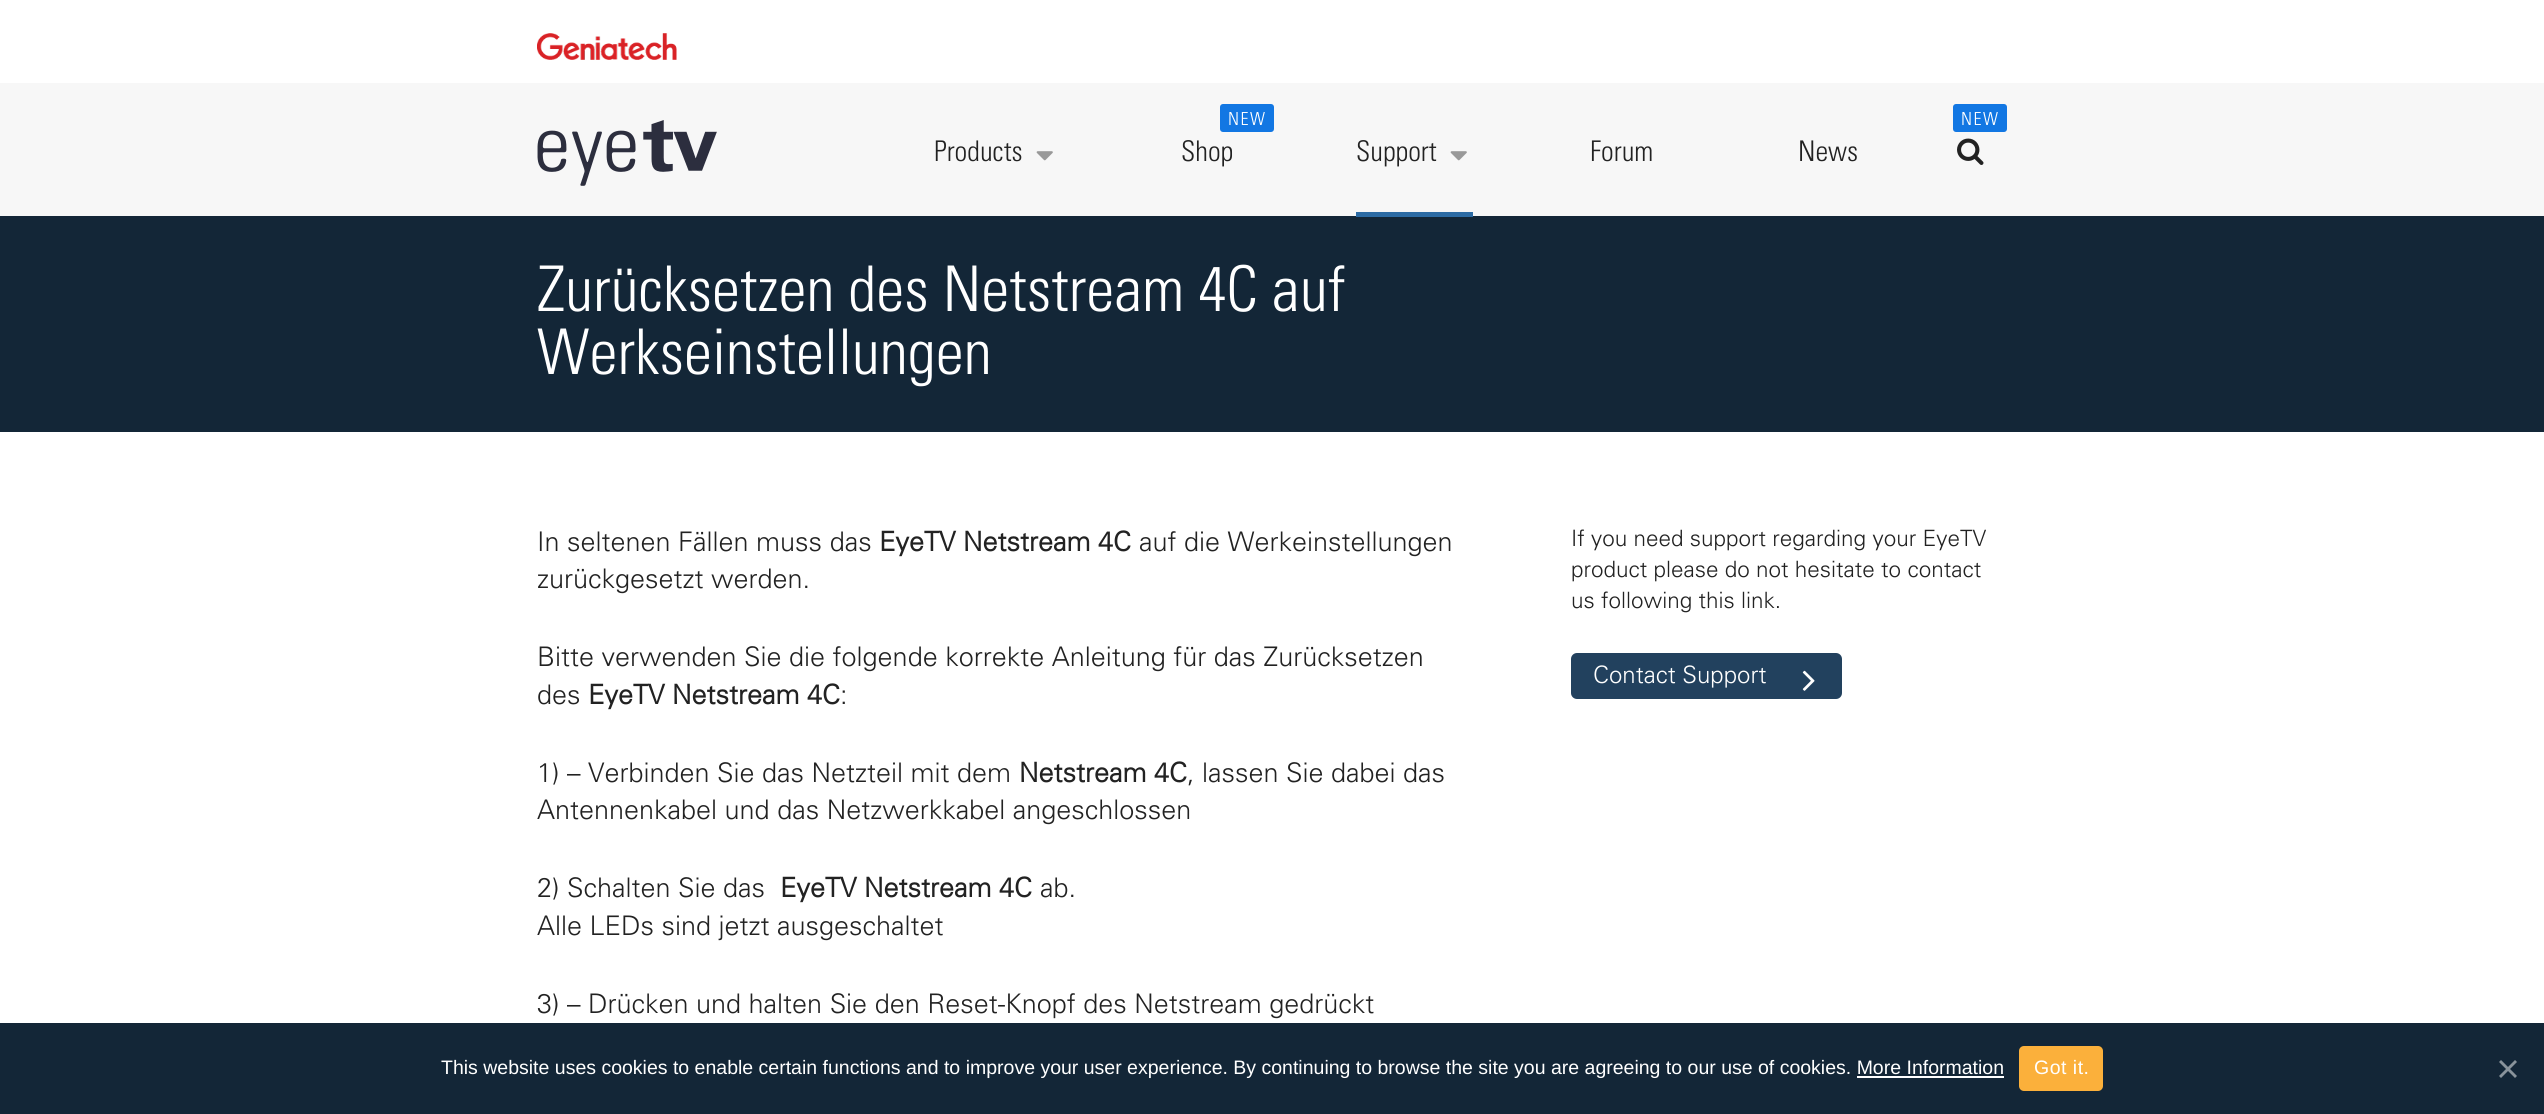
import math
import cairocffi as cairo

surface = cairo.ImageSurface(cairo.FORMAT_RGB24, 2544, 1114)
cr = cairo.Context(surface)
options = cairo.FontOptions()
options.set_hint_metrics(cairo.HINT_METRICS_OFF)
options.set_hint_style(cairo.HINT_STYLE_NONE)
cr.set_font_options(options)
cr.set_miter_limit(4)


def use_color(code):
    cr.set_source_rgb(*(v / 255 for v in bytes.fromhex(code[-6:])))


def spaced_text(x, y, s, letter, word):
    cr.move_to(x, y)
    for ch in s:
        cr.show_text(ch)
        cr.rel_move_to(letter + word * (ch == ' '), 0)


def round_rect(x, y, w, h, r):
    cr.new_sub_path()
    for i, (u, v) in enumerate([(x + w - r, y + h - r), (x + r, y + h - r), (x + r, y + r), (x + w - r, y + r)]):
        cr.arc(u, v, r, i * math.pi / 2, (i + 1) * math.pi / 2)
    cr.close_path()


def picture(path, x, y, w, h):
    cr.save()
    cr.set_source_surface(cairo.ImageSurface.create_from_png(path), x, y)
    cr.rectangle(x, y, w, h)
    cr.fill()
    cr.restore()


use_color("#ffffff")
cr.paint()
picture("img1.png", 537, 33, 140, 27)
use_color("#f7f7f7")
cr.rectangle(0, 83, 2544, 133)
cr.fill()
picture("img2.png", 537, 120, 180, 66)
use_color("#1277e3")
round_rect(1220, 104, 54, 28, 3)
cr.fill()
cr.select_font_face("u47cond")
cr.set_font_size(18)
use_color("#ffffff")
spaced_text(1228, 125, "NEW", 1.5, 0)
cr.set_font_size(28.5)
use_color("#222222")
cr.move_to(1181, 161)
cr.show_text("Shop")
use_color("#1277e3")
round_rect(1953, 104, 54, 28, 3)
cr.fill()
cr.set_font_size(18)
use_color("#ffffff")
spaced_text(1961, 125, "NEW", 1.5, 0)
picture("img3.png", 1957, 138, 27, 27)
cr.set_font_size(28.5)
use_color("#222222")
cr.move_to(934, 161)
cr.show_text("Products")
picture("img4.png", 1036, 151, 17, 10)
cr.move_to(1356, 161)
cr.show_text("Support")
picture("img4.png", 1450, 151, 17, 10)
use_color("#132637")
cr.rectangle(0, 216, 2544, 216)
cr.fill()
use_color("#2c6ba4")
cr.rectangle(1356, 212, 117, 5)
cr.fill()
use_color("#222222")
cr.move_to(1590, 161)
cr.show_text("Forum")
cr.move_to(1798, 161)
cr.show_text("News")
cr.set_font_size(63)
use_color("#ffffff")
cr.move_to(537, 311)
cr.show_text("Zurücksetzen des Netstream 4C auf")
cr.move_to(537, 374)
cr.show_text("Werkseinstellungen")
cr.select_font_face("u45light")
cr.set_font_size(27)
use_color("#222222")
cr.move_to(537, 551)
cr.show_text("In seltenen Fällen muss das")
cr.select_font_face("u45light", cairo.FONT_SLANT_NORMAL, cairo.FONT_WEIGHT_BOLD)
cr.move_to(879, 551)
cr.show_text("EyeTV Netstream 4C")
cr.select_font_face("u45light")
cr.move_to(1139, 551)
cr.show_text("auf die Werkeinstellungen")
cr.move_to(537, 588)
cr.show_text("zurückgesetzt werden.")
cr.move_to(537, 666)
cr.show_text("Bitte verwenden Sie die folgende korrekte Anleitung für das Zurücksetzen")
cr.move_to(537, 704)
cr.show_text("des")
cr.select_font_face("u45light", cairo.FONT_SLANT_NORMAL, cairo.FONT_WEIGHT_BOLD)
cr.move_to(588, 704)
cr.show_text("EyeTV Netstream 4C")
cr.select_font_face("u45light")
cr.move_to(840, 704)
cr.show_text(":")
cr.move_to(537, 782)
cr.show_text("1) – Verbinden Sie das Netzteil mit dem")
cr.select_font_face("u45light", cairo.FONT_SLANT_NORMAL, cairo.FONT_WEIGHT_BOLD)
cr.move_to(1019, 782)
cr.show_text("Netstream 4C")
cr.select_font_face("u45light")
cr.move_to(1187, 782)
cr.show_text(", lassen Sie dabei das")
cr.move_to(537, 819)
cr.show_text("Antennenkabel und das Netzwerkkabel angeschlossen")
cr.move_to(537, 897)
cr.show_text("2) Schalten Sie das")
cr.select_font_face("u45light", cairo.FONT_SLANT_NORMAL, cairo.FONT_WEIGHT_BOLD)
cr.move_to(780, 897)
cr.show_text("EyeTV Netstream 4C")
cr.select_font_face("u45light")
cr.move_to(1040, 897)
cr.show_text("ab.")
cr.move_to(537, 935)
cr.show_text("Alle LEDs sind jetzt ausgeschaltet")
cr.move_to(537, 1013)
cr.show_text("3) – Drücken und halten Sie den Reset-Knopf des Netstream gedrückt")
cr.set_font_size(22.5)
cr.move_to(1571, 546)
cr.show_text("If you need support regarding your EyeTV")
cr.move_to(1571, 577)
cr.show_text("product please do not hesitate to contact")
cr.move_to(1571, 608)
cr.show_text("us following this link.")
use_color("#22415e")
round_rect(1571, 653, 271, 46, 6)
cr.fill()
cr.set_font_size(24)
use_color("#ffffff")
cr.move_to(1593, 683)
cr.show_text("Contact Support")
picture("img5.png", 1802, 670, 13, 21)
use_color("#132637")
cr.rectangle(0, 1023, 2544, 91)
cr.fill()
cr.select_font_face("Liberation Sans")
cr.set_font_size(19.5)
use_color("#ffffff")
cr.move_to(441, 1074)
cr.show_text("This website uses cookies to enable certain functions and to improve your user experience. By continuing to browse the site you are agreeing to our use of cookies. More Information")
cr.rectangle(1857, 1076, 147, 2)
cr.fill()
use_color("#fbb03b")
round_rect(2019, 1046, 84, 45, 5)
cr.fill()
use_color("#ffffff")
spaced_text(2034, 1074, "Got it.", 0.5, 0)
use_color("#89939b")
cr.new_path()
cr.move_to(2515, 1060)
cr.line_to(2517, 1062)
cr.line_to(2501, 1078)
cr.line_to(2499, 1076)
cr.close_path()
cr.fill()
cr.new_path()
cr.move_to(2499, 1062)
cr.line_to(2501, 1060)
cr.line_to(2517, 1076)
cr.line_to(2515, 1078)
cr.close_path()
cr.fill()
surface.write_to_png("result.png")
